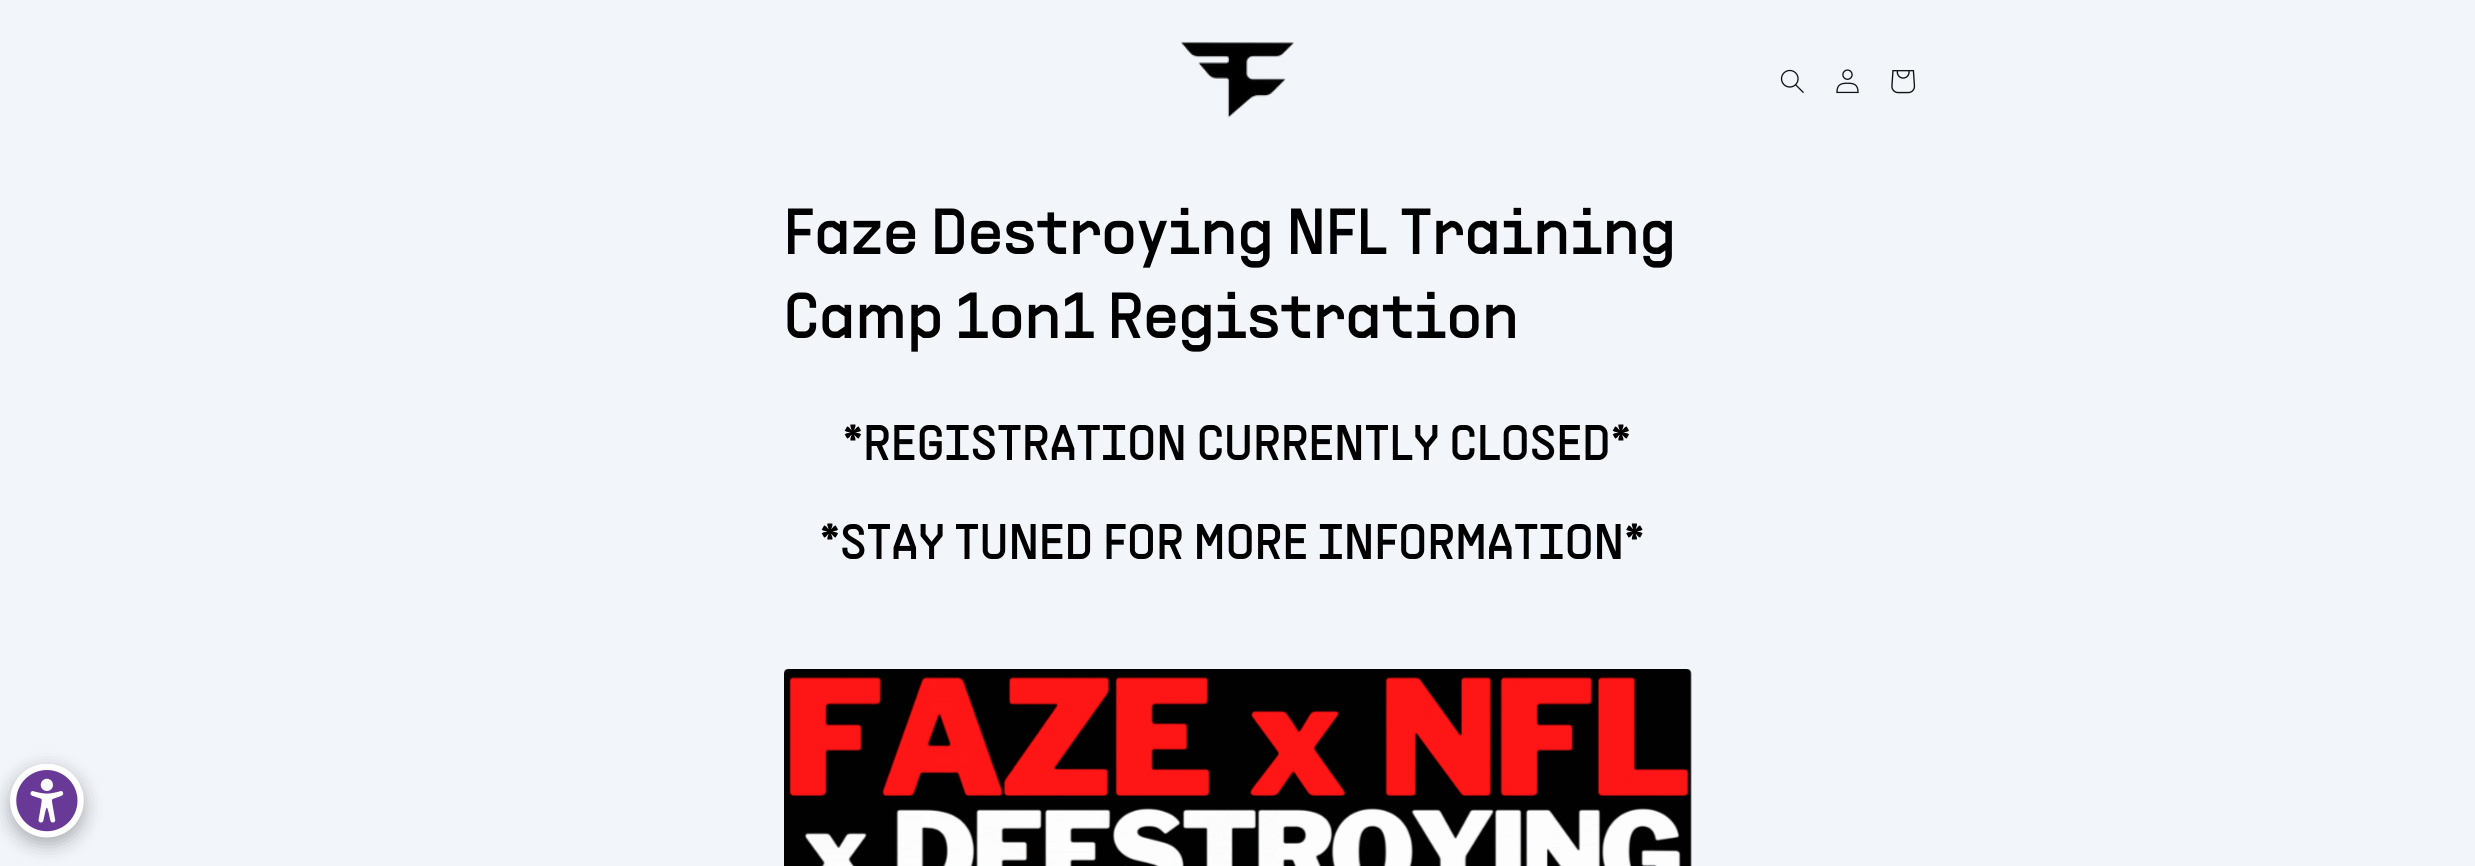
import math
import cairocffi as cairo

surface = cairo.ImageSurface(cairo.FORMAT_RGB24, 2475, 866)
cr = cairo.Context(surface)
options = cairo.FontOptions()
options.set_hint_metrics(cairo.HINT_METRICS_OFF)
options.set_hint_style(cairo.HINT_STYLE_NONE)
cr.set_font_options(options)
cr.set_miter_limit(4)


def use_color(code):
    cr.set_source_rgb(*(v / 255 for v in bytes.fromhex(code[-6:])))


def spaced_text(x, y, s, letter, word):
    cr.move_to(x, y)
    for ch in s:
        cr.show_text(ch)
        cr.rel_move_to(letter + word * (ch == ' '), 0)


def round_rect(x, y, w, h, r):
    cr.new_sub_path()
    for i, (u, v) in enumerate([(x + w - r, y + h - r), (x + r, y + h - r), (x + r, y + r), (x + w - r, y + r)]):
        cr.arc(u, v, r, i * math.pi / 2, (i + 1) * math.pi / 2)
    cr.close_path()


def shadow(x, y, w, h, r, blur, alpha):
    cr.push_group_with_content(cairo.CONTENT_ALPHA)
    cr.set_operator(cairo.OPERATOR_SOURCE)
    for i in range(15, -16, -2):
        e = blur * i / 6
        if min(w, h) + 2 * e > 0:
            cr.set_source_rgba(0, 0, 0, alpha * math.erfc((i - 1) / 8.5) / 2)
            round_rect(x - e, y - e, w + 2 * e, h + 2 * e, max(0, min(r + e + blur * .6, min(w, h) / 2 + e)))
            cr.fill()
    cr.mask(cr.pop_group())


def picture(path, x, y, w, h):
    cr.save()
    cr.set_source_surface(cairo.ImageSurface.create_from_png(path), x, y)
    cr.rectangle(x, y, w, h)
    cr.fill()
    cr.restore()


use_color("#f2f5fa")
cr.paint()
picture("img1.png", 1181, 41, 113, 77)
picture("img2.png", 1780, 69, 24, 24)
picture("img3.png", 1836, 69, 23, 25)
picture("img4.png", 1891, 70, 25, 24)
cr.select_font_face("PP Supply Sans")
cr.set_font_size(65)
use_color("#000000")
spaced_text(784, 254, "Faze Destroying NFL Training", 0.75, 0)
spaced_text(784, 338, "Camp 1on1 Registration", 0.75, 0)
cr.set_font_size(50)
spaced_text(843, 460, "*REGISTRATION CURRENTLY CLOSED*", 0.75, 0)
spaced_text(820, 559, "*STAY TUNED FOR MORE INFORMATION*", 0.75, 0)
picture("img5.png", 784, 669, 908, 197)
use_color("#000000")
shadow(10, 770, 74, 74, 37, 9.5, 0.3)
picture("img6.png", 10, 764, 74, 74)
surface.write_to_png("result.png")
